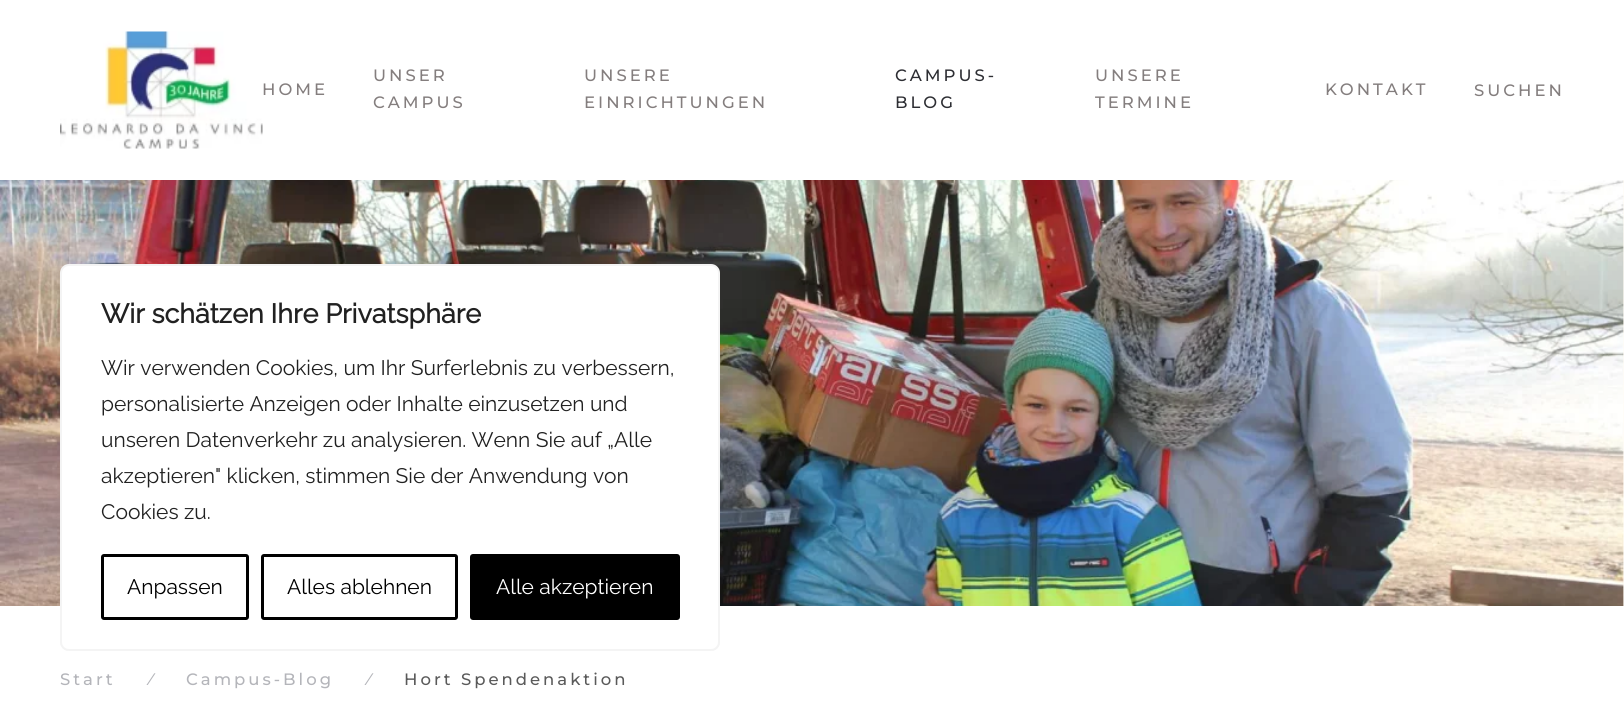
import math
import cairocffi as cairo

surface = cairo.ImageSurface(cairo.FORMAT_RGB24, 1624, 711)
cr = cairo.Context(surface)
options = cairo.FontOptions()
options.set_hint_metrics(cairo.HINT_METRICS_OFF)
options.set_hint_style(cairo.HINT_STYLE_NONE)
cr.set_font_options(options)
cr.set_miter_limit(4)


def use_color(code):
    cr.set_source_rgb(*(v / 255 for v in bytes.fromhex(code[-6:])))


def spaced_text(x, y, s, letter, word):
    cr.move_to(x, y)
    for ch in s:
        cr.show_text(ch)
        cr.rel_move_to(letter + word * (ch == ' '), 0)


def round_rect(x, y, w, h, r):
    cr.new_sub_path()
    for i, (u, v) in enumerate([(x + w - r, y + h - r), (x + r, y + h - r), (x + r, y + r), (x + w - r, y + r)]):
        cr.arc(u, v, r, i * math.pi / 2, (i + 1) * math.pi / 2)
    cr.close_path()


def shadow(x, y, w, h, r, blur, alpha):
    cr.push_group_with_content(cairo.CONTENT_ALPHA)
    cr.set_operator(cairo.OPERATOR_SOURCE)
    for i in range(15, -16, -2):
        e = blur * i / 6
        if min(w, h) + 2 * e > 0:
            cr.set_source_rgba(0, 0, 0, alpha * math.erfc((i - 1) / 8.5) / 2)
            round_rect(x - e, y - e, w + 2 * e, h + 2 * e, max(0, min(r + e + blur * .6, min(w, h) / 2 + e)))
            cr.fill()
    cr.mask(cr.pop_group())


def picture(path, x, y, w, h):
    cr.save()
    cr.set_source_surface(cairo.ImageSurface.create_from_png(path), x, y)
    cr.rectangle(x, y, w, h)
    cr.fill()
    cr.restore()


use_color("#ffffff")
cr.paint()
picture("img1.png", 60, 31, 203, 118)
cr.select_font_face("Montserrat Thin")
cr.set_font_size(16.5)
use_color("#847e7e")
spaced_text(262, 95, "HOME", 3, 0)
spaced_text(373, 81, "UNSER", 3, 0)
spaced_text(373, 108, "CAMPUS", 3, 0)
spaced_text(584, 81, "UNSERE", 3, 0)
spaced_text(584, 108, "EINRICHTUNGEN", 3, 0)
use_color("#2d2e33")
spaced_text(895, 81, "CAMPUS-", 3, 0)
spaced_text(895, 108, "BLOG", 3, 0)
use_color("#847e7e")
spaced_text(1095, 81, "UNSERE", 3, 0)
spaced_text(1095, 108, "TERMINE", 3, 0)
spaced_text(1325, 95, "KONTAKT", 3, 0)
spaced_text(1474, 96, "SUCHEN", 3, 0)
use_color("#fffcf6")
cr.rectangle(1623, 180, 1, 426)
cr.fill()
picture("img2.png", 0, 180, 1624, 426)
use_color("#b4b5ba")
spaced_text(60, 685, "Start", 3, 0)
cr.select_font_face("Raleway Thin")
cr.move_to(146, 685)
cr.show_text("/")
cr.select_font_face("Montserrat Thin")
spaced_text(186, 685, "Campus-Blog", 3, 0)
cr.select_font_face("Raleway Thin")
cr.move_to(364, 685)
cr.show_text("/")
cr.select_font_face("Montserrat Thin")
use_color("#5a5a5a")
spaced_text(404, 685, "Hort Spendenaktion", 3, 0)
cr.save()
round_rect(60, 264, 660, 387, 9)
cr.clip()
use_color("#acabab")
shadow(60, 263, 660, 387, 9, 7.5, 0.3)
cr.restore()
use_color("#ffffff")
round_rect(61, 265, 658, 385, 8)
cr.fill_preserve()
use_color("#f4f4f4")
cr.stroke()
cr.select_font_face("Raleway", cairo.FONT_SLANT_NORMAL, cairo.FONT_WEIGHT_BOLD)
cr.set_font_size(27)
use_color("#212121")
cr.move_to(101, 323)
cr.show_text("Wir schätzen Ihre Privatsphäre")
cr.select_font_face("Raleway Thin")
cr.set_font_size(21)
cr.move_to(101, 375)
cr.show_text("Wir verwenden Cookies, um Ihr Surferlebnis zu verbessern,")
cr.move_to(101, 411)
cr.show_text("personalisierte Anzeigen oder Inhalte einzusetzen und")
cr.move_to(101, 447)
cr.show_text("unseren Datenverkehr zu analysieren. Wenn Sie auf „Alle")
cr.move_to(101, 483)
cr.show_text("akzeptieren\" klicken, stimmen Sie der Anwendung von")
cr.move_to(101, 519)
cr.show_text("Cookies zu.")
round_rect(102.5, 555.5, 145, 63, 1.5)
use_color("#000000")
cr.set_line_width(3)
cr.stroke()
cr.move_to(127, 594)
cr.show_text("Anpassen")
round_rect(262.5, 555.5, 194, 63, 1.5)
cr.stroke()
cr.move_to(287, 594)
cr.show_text("Alles ablehnen")
round_rect(471.5, 555.5, 207, 63, 1.5)
cr.fill_preserve()
cr.stroke()
use_color("#ffffff")
cr.move_to(496, 594)
cr.show_text("Alle akzeptieren")
surface.write_to_png("result.png")
